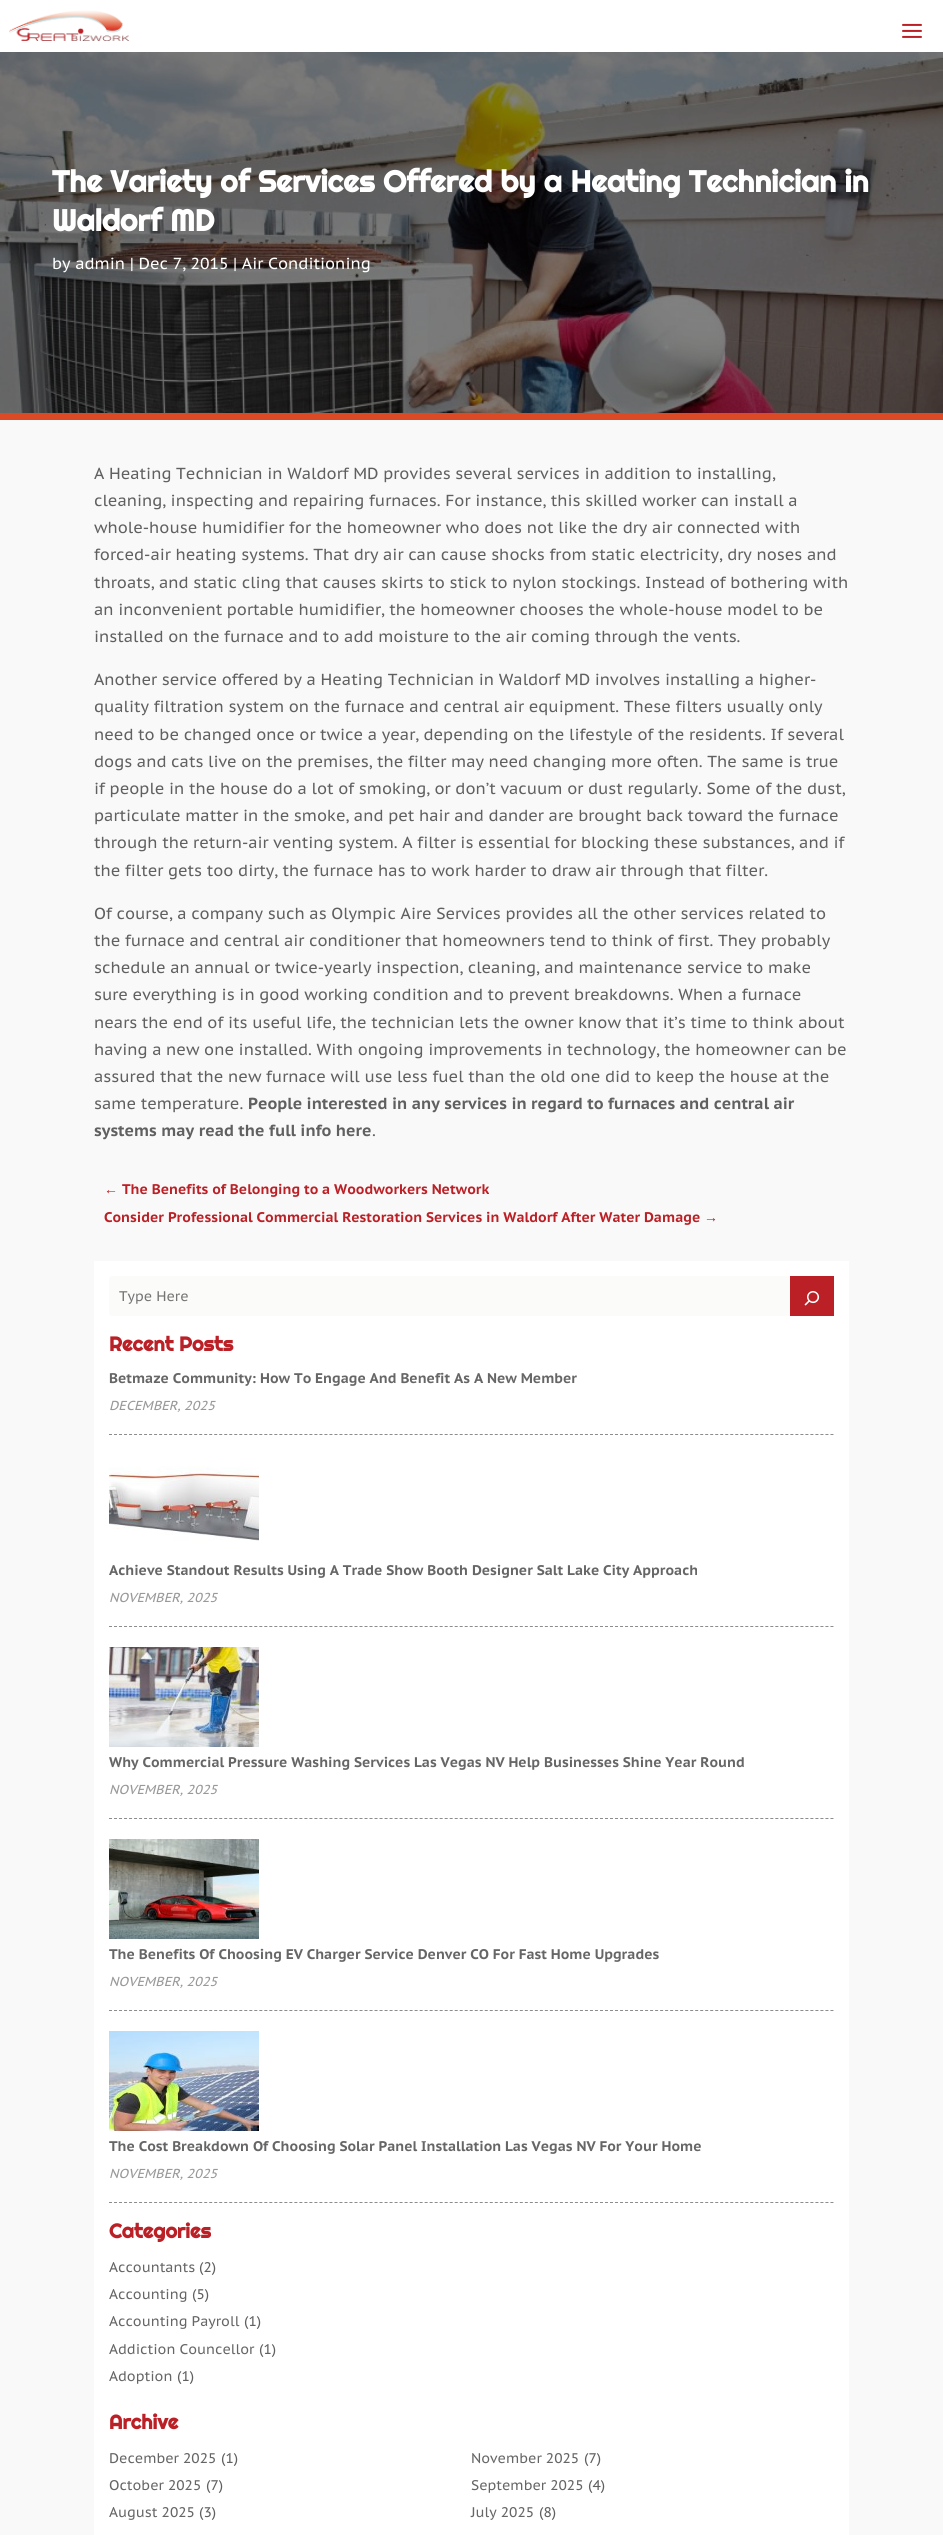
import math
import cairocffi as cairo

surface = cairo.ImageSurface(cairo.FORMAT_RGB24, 943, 2535)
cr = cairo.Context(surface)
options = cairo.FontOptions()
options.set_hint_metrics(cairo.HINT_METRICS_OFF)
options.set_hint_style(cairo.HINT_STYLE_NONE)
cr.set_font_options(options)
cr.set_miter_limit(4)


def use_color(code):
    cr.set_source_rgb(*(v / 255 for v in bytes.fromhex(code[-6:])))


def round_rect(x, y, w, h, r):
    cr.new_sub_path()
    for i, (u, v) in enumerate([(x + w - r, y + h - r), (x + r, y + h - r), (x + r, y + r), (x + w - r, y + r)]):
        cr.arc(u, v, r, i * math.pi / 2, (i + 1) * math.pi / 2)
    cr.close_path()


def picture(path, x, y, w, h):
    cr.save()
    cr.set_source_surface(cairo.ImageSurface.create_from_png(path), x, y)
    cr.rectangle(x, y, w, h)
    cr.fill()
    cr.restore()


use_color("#ffffff")
cr.paint()
picture("img1.png", 9, 10, 120, 31)
picture("img2.png", 902, 23, 20, 15)
picture("img3.png", 0, 52, 943, 361)
use_color("#db4925")
cr.rectangle(0, 413, 943, 7)
cr.fill()
cr.select_font_face("Righteous", cairo.FONT_SLANT_NORMAL, cairo.FONT_WEIGHT_BOLD)
cr.set_font_size(30)
use_color("#ffffff")
cr.move_to(52, 192)
cr.show_text("The Variety of Services Offered by a Heating Technician in")
cr.move_to(52, 231)
cr.show_text("Waldorf MD")
cr.select_font_face("PT Sans Caption")
cr.set_font_size(16)
cr.move_to(52, 269)
cr.show_text("by admin | Dec 7, 2015 | Air Conditioning")
use_color("#f9f9f9")
cr.rectangle(0, 420, 943, 2115)
cr.fill()
use_color("#606060")
cr.move_to(94, 479)
cr.show_text("A Heating Technician in Waldorf MD provides several services in addition to installing,")
cr.move_to(94, 506)
cr.show_text("cleaning, inspecting and repairing furnaces. For instance, this skilled worker can install a")
cr.move_to(94, 533)
cr.show_text("whole-house humidifier for the homeowner who does not like the dry air connected with")
cr.move_to(94, 560)
cr.show_text("forced-air heating systems. That dry air can cause shocks from static electricity, dry noses and")
cr.move_to(94, 588)
cr.show_text("throats, and static cling that causes skirts to stick to nylon stockings. Instead of bothering with")
cr.move_to(94, 615)
cr.show_text("an inconvenient portable humidifier, the homeowner chooses the whole-house model to be")
cr.move_to(94, 642)
cr.show_text("installed on the furnace and to add moisture to the air coming through the vents.")
cr.move_to(94, 685)
cr.show_text("Another service offered by a Heating Technician in Waldorf MD involves installing a higher-")
cr.move_to(94, 712)
cr.show_text("quality filtration system on the furnace and central air equipment. These filters usually only")
cr.move_to(94, 740)
cr.show_text("need to be changed once or twice a year, depending on the lifestyle of the residents. If several")
cr.move_to(94, 767)
cr.show_text("dogs and cats live on the premises, the filter may need changing more often. The same is true")
cr.move_to(94, 794)
cr.show_text("if people in the house do a lot of smoking, or don’t vacuum or dust regularly. Some of the dust,")
cr.move_to(94, 821)
cr.show_text("particulate matter in the smoke, and pet hair and dander are brought back toward the furnace")
cr.move_to(94, 848)
cr.show_text("through the return-air venting system. A filter is essential for blocking these substances, and if")
cr.move_to(94, 876)
cr.show_text("the filter gets too dirty, the furnace has to work harder to draw air through that filter.")
cr.move_to(94, 919)
cr.show_text("Of course, a company such as Olympic Aire Services provides all the other services related to")
cr.move_to(94, 946)
cr.show_text("the furnace and central air conditioner that homeowners tend to think of first. They probably")
cr.move_to(94, 973)
cr.show_text("schedule an annual or twice-yearly inspection, cleaning, and maintenance service to make")
cr.move_to(94, 1000)
cr.show_text("sure everything is in good working condition and to prevent breakdowns. When a furnace")
cr.move_to(94, 1028)
cr.show_text("nears the end of its useful life, the technician lets the owner know that it’s time to think about")
cr.move_to(94, 1055)
cr.show_text("having a new one installed. With ongoing improvements in technology, the homeowner can be")
cr.move_to(94, 1082)
cr.show_text("assured that the new furnace will use less fuel than the old one did to keep the house at the")
cr.move_to(94, 1109)
cr.show_text("same temperature.")
cr.select_font_face("PT Sans Caption", cairo.FONT_SLANT_NORMAL, cairo.FONT_WEIGHT_BOLD)
cr.move_to(248, 1109)
cr.show_text("People interested in any services in regard to furnaces and central air")
cr.move_to(94, 1136)
cr.show_text("systems may read the full info here")
cr.select_font_face("PT Sans Caption")
cr.move_to(372, 1136)
cr.show_text(".")
cr.select_font_face("Liberation Sans", cairo.FONT_SLANT_NORMAL, cairo.FONT_WEIGHT_BOLD)
cr.set_font_size(14)
use_color("#bb2026")
cr.move_to(104, 1194)
cr.show_text("←")
cr.select_font_face("PT Sans Caption", cairo.FONT_SLANT_NORMAL, cairo.FONT_WEIGHT_BOLD)
cr.move_to(122, 1194)
cr.show_text("The Benefits of Belonging to a Woodworkers Network")
cr.move_to(104, 1222)
cr.show_text("Consider Professional Commercial Restoration Services in Waldorf After Water Damage")
cr.select_font_face("Liberation Sans", cairo.FONT_SLANT_NORMAL, cairo.FONT_WEIGHT_BOLD)
cr.move_to(704, 1222)
cr.show_text("→")
use_color("#ffffff")
cr.rectangle(94, 1261, 755, 1274)
cr.fill()
use_color("#fbfbfa")
round_rect(109, 1276, 725, 40, 3)
cr.fill()
cr.select_font_face("PT Sans Caption")
use_color("#757575")
cr.move_to(119, 1301)
cr.show_text("Type Here")
use_color("#bb2026")
cr.rectangle(790, 1276, 44, 40)
cr.fill()
picture("img4.png", 804, 1291, 16, 15)
cr.select_font_face("Righteous", cairo.FONT_SLANT_NORMAL, cairo.FONT_WEIGHT_BOLD)
cr.set_font_size(20)
cr.move_to(109, 1351)
cr.show_text("Recent Posts")
cr.new_path()
cr.move_to(109, 1434.5)
cr.line_to(834, 1434.5)
use_color("#8d8b8b")
cr.set_line_width(1)
cr.set_dash([3, 2.01])
cr.stroke()
cr.select_font_face("PT Sans Caption", cairo.FONT_SLANT_NORMAL, cairo.FONT_WEIGHT_BOLD)
cr.set_font_size(14)
use_color("#666666")
cr.move_to(109, 1383)
cr.show_text("Betmaze Community: How To Engage And Benefit As A New Member")
cr.select_font_face("PT Sans Caption", cairo.FONT_SLANT_ITALIC)
cr.set_font_size(13)
use_color("#999999")
cr.move_to(109, 1410)
cr.show_text("DECEMBER, 2025")
cr.new_path()
cr.move_to(109, 1626.5)
cr.line_to(834, 1626.5)
use_color("#8d8b8b")
cr.stroke()
picture("img5.png", 109, 1466, 150, 75)
cr.select_font_face("PT Sans Caption", cairo.FONT_SLANT_NORMAL, cairo.FONT_WEIGHT_BOLD)
cr.set_font_size(14)
use_color("#666666")
cr.move_to(109, 1575)
cr.show_text("Achieve Standout Results Using A Trade Show Booth Designer Salt Lake City Approach")
cr.select_font_face("PT Sans Caption", cairo.FONT_SLANT_ITALIC)
cr.set_font_size(13)
use_color("#999999")
cr.move_to(109, 1602)
cr.show_text("NOVEMBER, 2025")
cr.new_path()
cr.move_to(109, 1818.5)
cr.line_to(834, 1818.5)
use_color("#8d8b8b")
cr.stroke()
picture("img6.png", 109, 1647, 150, 100)
cr.select_font_face("PT Sans Caption", cairo.FONT_SLANT_NORMAL, cairo.FONT_WEIGHT_BOLD)
cr.set_font_size(14)
use_color("#666666")
cr.move_to(109, 1767)
cr.show_text("Why Commercial Pressure Washing Services Las Vegas NV Help Businesses Shine Year Round")
cr.select_font_face("PT Sans Caption", cairo.FONT_SLANT_ITALIC)
cr.set_font_size(13)
use_color("#999999")
cr.move_to(109, 1794)
cr.show_text("NOVEMBER, 2025")
cr.new_path()
cr.move_to(109, 2010.5)
cr.line_to(834, 2010.5)
use_color("#8d8b8b")
cr.stroke()
picture("img7.png", 109, 1839, 150, 100)
cr.select_font_face("PT Sans Caption", cairo.FONT_SLANT_NORMAL, cairo.FONT_WEIGHT_BOLD)
cr.set_font_size(14)
use_color("#666666")
cr.move_to(109, 1959)
cr.show_text("The Benefits Of Choosing EV Charger Service Denver CO For Fast Home Upgrades")
cr.select_font_face("PT Sans Caption", cairo.FONT_SLANT_ITALIC)
cr.set_font_size(13)
use_color("#999999")
cr.move_to(109, 1986)
cr.show_text("NOVEMBER, 2025")
cr.new_path()
cr.move_to(109, 2202.5)
cr.line_to(834, 2202.5)
use_color("#8d8b8b")
cr.stroke()
picture("img8.png", 109, 2031, 150, 100)
cr.select_font_face("PT Sans Caption", cairo.FONT_SLANT_NORMAL, cairo.FONT_WEIGHT_BOLD)
cr.set_font_size(14)
use_color("#666666")
cr.move_to(109, 2151)
cr.show_text("The Cost Breakdown Of Choosing Solar Panel Installation Las Vegas NV For Your Home")
cr.select_font_face("PT Sans Caption", cairo.FONT_SLANT_ITALIC)
cr.set_font_size(13)
use_color("#999999")
cr.move_to(109, 2178)
cr.show_text("NOVEMBER, 2025")
cr.select_font_face("Righteous", cairo.FONT_SLANT_NORMAL, cairo.FONT_WEIGHT_BOLD)
cr.set_font_size(20)
use_color("#bb2026")
cr.move_to(109, 2238)
cr.show_text("Categories")
cr.select_font_face("PT Sans Caption")
cr.set_font_size(14)
use_color("#666666")
cr.move_to(109, 2272)
cr.show_text("Accountants")
use_color("#606060")
cr.move_to(199, 2272)
cr.show_text("(2)")
use_color("#666666")
cr.move_to(109, 2299)
cr.show_text("Accounting")
use_color("#606060")
cr.move_to(192, 2299)
cr.show_text("(5)")
use_color("#666666")
cr.move_to(109, 2326)
cr.show_text("Accounting Payroll")
use_color("#606060")
cr.move_to(244, 2326)
cr.show_text("(1)")
use_color("#666666")
cr.move_to(109, 2354)
cr.show_text("Addiction Councellor")
use_color("#606060")
cr.move_to(259, 2354)
cr.show_text("(1)")
use_color("#666666")
cr.move_to(109, 2381)
cr.show_text("Adoption")
use_color("#606060")
cr.move_to(177, 2381)
cr.show_text("(1)")
cr.select_font_face("Righteous", cairo.FONT_SLANT_NORMAL, cairo.FONT_WEIGHT_BOLD)
cr.set_font_size(20)
use_color("#bb2026")
cr.move_to(109, 2429)
cr.show_text("Archive")
cr.select_font_face("PT Sans Caption")
cr.set_font_size(14)
use_color("#666666")
cr.move_to(109, 2463)
cr.show_text("December 2025")
use_color("#606060")
cr.move_to(221, 2463)
cr.show_text("(1)")
use_color("#666666")
cr.move_to(471, 2463)
cr.show_text("November 2025")
use_color("#606060")
cr.move_to(584, 2463)
cr.show_text("(7)")
use_color("#666666")
cr.move_to(109, 2490)
cr.show_text("October 2025")
use_color("#606060")
cr.move_to(206, 2490)
cr.show_text("(7)")
use_color("#666666")
cr.move_to(471, 2490)
cr.show_text("September 2025")
use_color("#606060")
cr.move_to(588, 2490)
cr.show_text("(4)")
use_color("#666666")
cr.move_to(109, 2517)
cr.show_text("August 2025")
use_color("#606060")
cr.move_to(199, 2517)
cr.show_text("(3)")
use_color("#666666")
cr.move_to(471, 2517)
cr.show_text("July 2025")
use_color("#606060")
cr.move_to(539, 2517)
cr.show_text("(8)")
surface.write_to_png("result.png")
